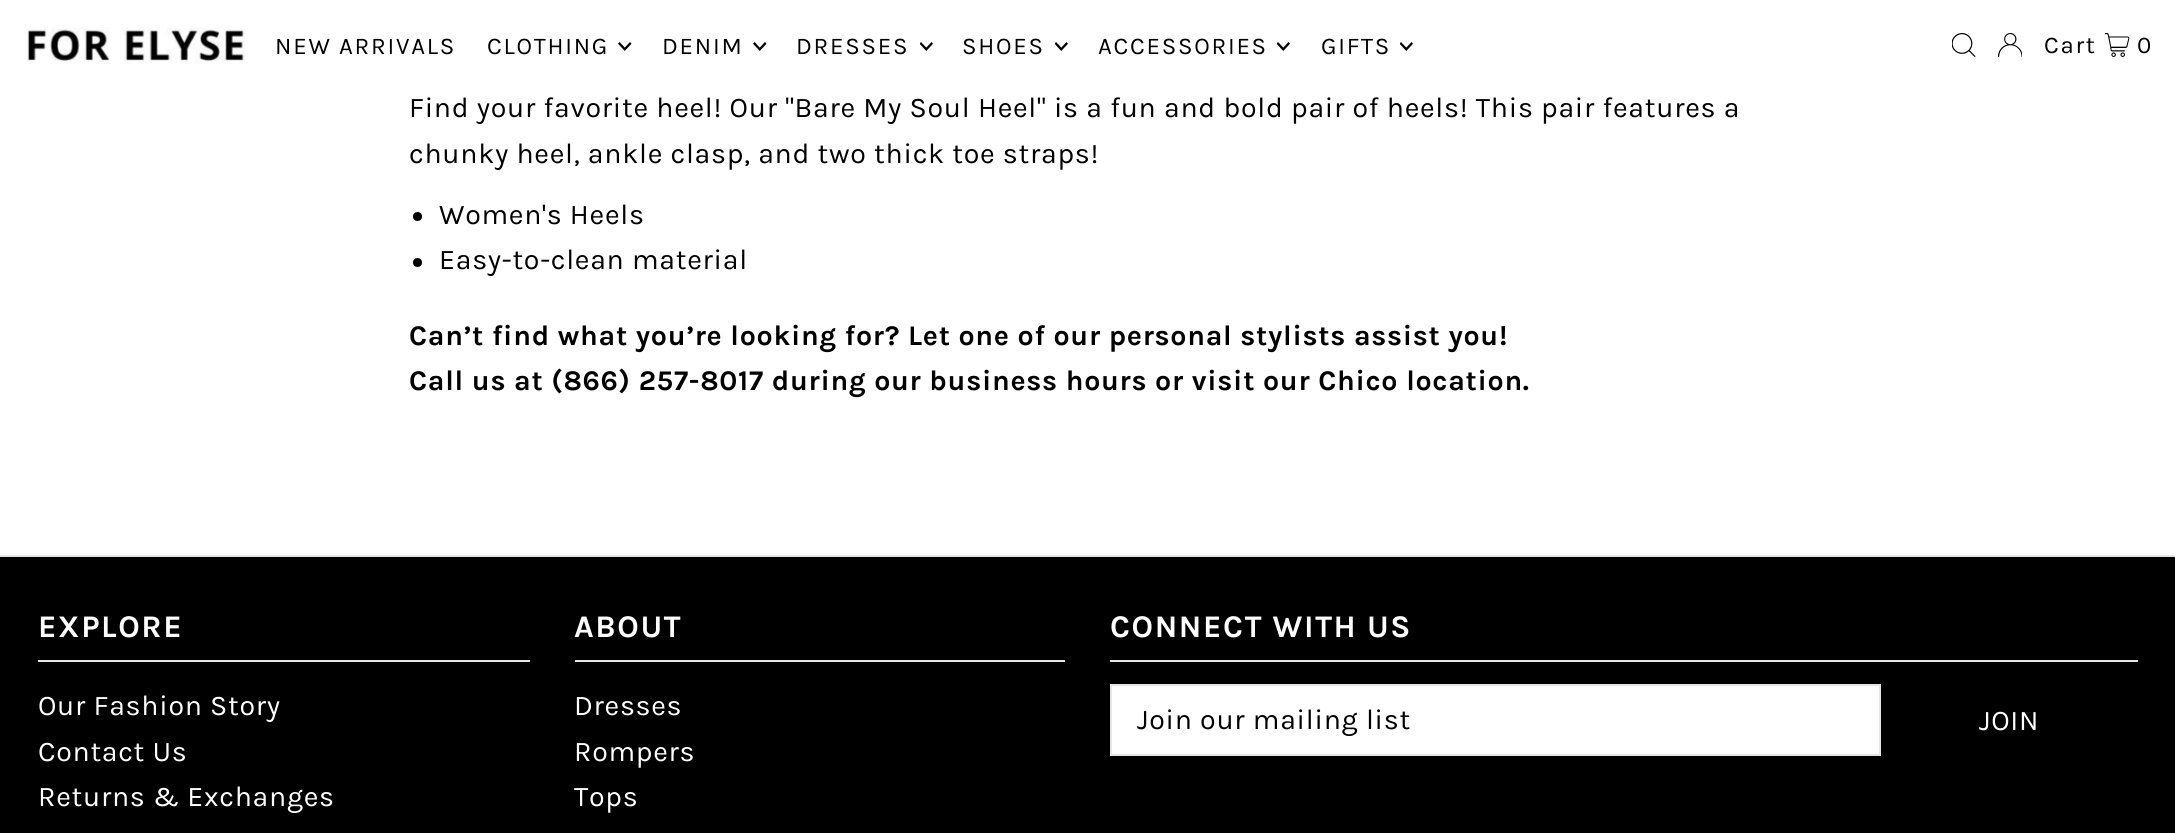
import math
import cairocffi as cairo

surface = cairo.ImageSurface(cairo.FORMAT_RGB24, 2175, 833)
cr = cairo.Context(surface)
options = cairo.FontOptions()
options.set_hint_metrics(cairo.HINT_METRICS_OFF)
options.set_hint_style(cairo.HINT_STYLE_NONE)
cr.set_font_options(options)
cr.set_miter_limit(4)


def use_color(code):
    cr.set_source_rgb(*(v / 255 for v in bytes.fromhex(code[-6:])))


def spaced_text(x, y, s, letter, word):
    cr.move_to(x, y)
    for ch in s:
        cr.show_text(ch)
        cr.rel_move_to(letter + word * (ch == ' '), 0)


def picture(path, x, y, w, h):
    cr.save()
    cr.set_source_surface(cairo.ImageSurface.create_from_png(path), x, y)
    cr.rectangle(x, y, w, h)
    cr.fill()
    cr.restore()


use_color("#ffffff")
cr.paint()
picture("img1.png", 24, 27, 221, 37)
cr.select_font_face("Karla")
cr.set_font_size(24)
use_color("#000000")
spaced_text(275, 54, "NEW ARRIVALS", 1.75, 0)
spaced_text(487, 54, "CLOTHING", 1.75, 0)
picture("img2.png", 618, 42, 14, 9)
spaced_text(662, 54, "DENIM", 1.75, 0)
picture("img2.png", 753, 42, 14, 9)
spaced_text(796, 54, "DRESSES", 1.75, 0)
picture("img3.png", 920, 42, 13, 9)
spaced_text(962, 54, "SHOES", 1.75, 0)
picture("img3.png", 1055, 42, 13, 9)
spaced_text(1098, 54, "ACCESSORIES", 1.75, 0)
picture("img3.png", 1277, 42, 13, 9)
spaced_text(1321, 54, "GIFTS", 1.75, 0)
picture("img3.png", 1400, 42, 13, 9)
picture("img4.png", 1952, 33, 24, 24)
picture("img5.png", 1998, 33, 24, 24)
spaced_text(2044, 53, "Cart", 1.75, 0)
picture("img6.png", 2105, 33, 25, 24)
spaced_text(2137, 53, "0", 1.75, 0)
cr.set_font_size(28.5)
spaced_text(409, 117, "Find your favorite heel! Our \"Bare My Soul Heel\" is a fun and bold pair of heels! This pair features a", 0.71, 0)
spaced_text(409, 163, "chunky heel, ankle clasp, and two thick toe straps!", 0.71, 0)
cr.new_path()
cr.arc(417.5, 216.5, 4.5, 0, 2 * math.pi)
cr.fill()
spaced_text(439, 224, "Women's Heels", 0.71, 0)
cr.new_path()
cr.arc(417.5, 262.5, 4.5, 0, 2 * math.pi)
cr.fill()
spaced_text(439, 269, "Easy-to-clean material", 0.71, 0)
cr.select_font_face("Karla", cairo.FONT_SLANT_NORMAL, cairo.FONT_WEIGHT_BOLD)
spaced_text(409, 345, "Can’t find what you’re looking for? Let one of our personal stylists assist you!", 0.71, 0)
spaced_text(409, 390, "Call us at (866) 257-8017 during our business hours or visit our Chico location.", 0.71, 0)
cr.rectangle(0, 557, 2175, 276)
cr.fill()
use_color("#e5e5e5")
cr.rectangle(0, 555, 2175, 2)
cr.fill()
cr.rectangle(38, 660, 492, 2)
cr.fill()
cr.set_font_size(31.5)
use_color("#ffffff")
spaced_text(38, 637, "EXPLORE", 1.6, 0)
cr.select_font_face("Karla")
cr.set_font_size(28.5)
spaced_text(38, 715, "Our Fashion Story", 0.71, 0)
spaced_text(38, 761, "Contact Us", 0.71, 0)
spaced_text(38, 806, "Returns & Exchanges", 0.71, 0)
use_color("#e5e5e5")
cr.rectangle(575, 660, 490, 2)
cr.fill()
cr.select_font_face("Karla", cairo.FONT_SLANT_NORMAL, cairo.FONT_WEIGHT_BOLD)
cr.set_font_size(31.5)
use_color("#ffffff")
spaced_text(574, 637, "ABOUT", 1.6, 0)
cr.select_font_face("Karla")
cr.set_font_size(28.5)
spaced_text(574, 715, "Dresses", 0.71, 0)
spaced_text(574, 761, "Rompers", 0.71, 0)
spaced_text(574, 806, "Tops", 0.71, 0)
use_color("#e5e5e5")
cr.rectangle(1110, 660, 1028, 2)
cr.fill()
cr.select_font_face("Karla", cairo.FONT_SLANT_NORMAL, cairo.FONT_WEIGHT_BOLD)
cr.set_font_size(31.5)
use_color("#ffffff")
spaced_text(1110, 637, "CONNECT WITH US", 1.6, 0)
cr.rectangle(1111, 685, 769, 70)
cr.fill_preserve()
use_color("#e5e5e5")
cr.stroke()
cr.select_font_face("Karla")
cr.set_font_size(28.5)
use_color("#000000")
spaced_text(1137, 729, "Join our mailing list", 0.71, 0)
use_color("#ffffff")
spaced_text(1979, 730, "JOIN", 0.71, 0)
surface.write_to_png("result.png")
